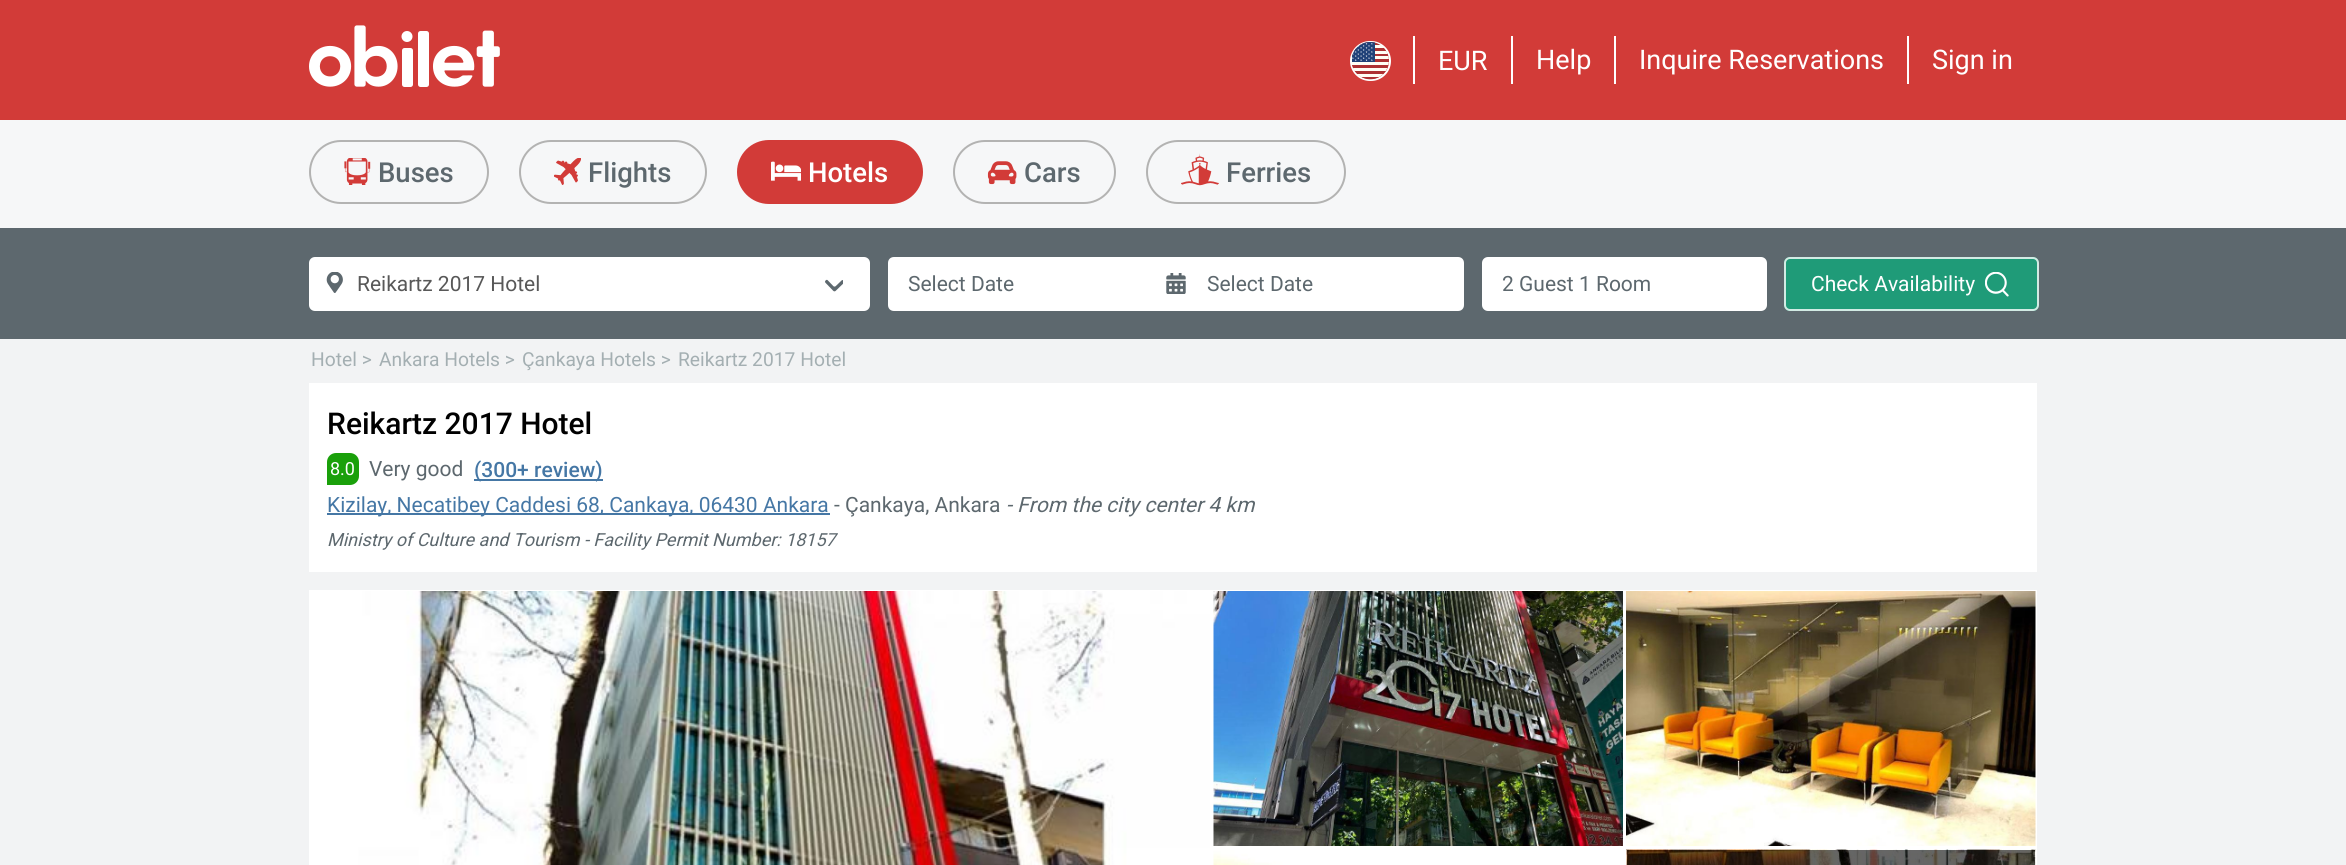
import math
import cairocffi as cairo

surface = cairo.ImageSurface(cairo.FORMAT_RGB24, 2346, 865)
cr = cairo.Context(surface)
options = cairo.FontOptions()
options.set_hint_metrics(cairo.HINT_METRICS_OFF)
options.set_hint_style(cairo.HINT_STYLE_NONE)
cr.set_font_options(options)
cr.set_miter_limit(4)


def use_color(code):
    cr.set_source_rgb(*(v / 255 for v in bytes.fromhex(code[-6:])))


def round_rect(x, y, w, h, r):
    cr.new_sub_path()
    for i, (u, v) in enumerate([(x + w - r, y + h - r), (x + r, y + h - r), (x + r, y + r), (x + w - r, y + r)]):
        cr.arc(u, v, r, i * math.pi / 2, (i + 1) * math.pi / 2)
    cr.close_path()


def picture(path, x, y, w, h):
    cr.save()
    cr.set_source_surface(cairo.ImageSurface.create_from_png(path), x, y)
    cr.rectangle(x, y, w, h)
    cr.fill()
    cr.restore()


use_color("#f2f3f4")
cr.paint()
use_color("#d23b38")
cr.rectangle(0, 0, 2346, 120)
cr.fill()
picture("img1.png", 309, 25, 191, 62)
round_rect(1351, 42, 39, 38, 19)
use_color("#ffffff")
cr.stroke()
picture("img2.png", 1352, 42, 37, 38)
cr.rectangle(1413, 36, 2, 48)
cr.fill()
cr.select_font_face("Roboto")
cr.set_font_size(27)
cr.move_to(1438, 70)
cr.show_text("EUR")
cr.rectangle(1511, 36, 2, 48)
cr.fill()
cr.move_to(1536, 69)
cr.show_text("Help")
cr.rectangle(1614, 36, 2, 48)
cr.fill()
cr.move_to(1639, 69)
cr.show_text("Inquire Reservations")
cr.rectangle(1907, 36, 2, 48)
cr.fill()
cr.move_to(1932, 69)
cr.show_text("Sign in")
use_color("#f6f7f8")
cr.rectangle(0, 120, 2346, 108)
cr.fill()
round_rect(310, 141, 178, 62, 31)
use_color("#b3b3b2")
cr.stroke()
picture("img3.png", 344, 158, 27, 27)
cr.select_font_face("Roboto Medium")
cr.set_font_size(27.5)
use_color("#5d686e")
cr.move_to(378, 182)
cr.show_text("Buses")
round_rect(520, 141, 186, 62, 31)
use_color("#b3b3b2")
cr.stroke()
picture("img4.png", 554, 158, 27, 27)
use_color("#5d686e")
cr.move_to(588, 182)
cr.show_text("Flights")
use_color("#d23b38")
round_rect(738, 141, 184, 62, 31)
cr.fill_preserve()
cr.stroke()
picture("img5.png", 771, 161, 30, 20)
use_color("#ffffff")
cr.move_to(808, 182)
cr.show_text("Hotels")
round_rect(954, 141, 161, 62, 31)
use_color("#b3b3b2")
cr.stroke()
picture("img6.png", 987, 161, 30, 24)
use_color("#5d686e")
cr.move_to(1024, 182)
cr.show_text("Cars")
round_rect(1147, 141, 198, 62, 31)
use_color("#b3b3b2")
cr.stroke()
picture("img7.png", 1181, 153, 38, 33)
use_color("#5d686e")
cr.move_to(1226, 182)
cr.show_text("Ferries")
cr.rectangle(0, 228, 2346, 111)
cr.fill()
use_color("#ffffff")
round_rect(309, 257, 561, 54, 6)
cr.fill()
picture("img8.png", 326, 272, 17, 21)
cr.select_font_face("Roboto")
cr.set_font_size(21)
use_color("#585858")
cr.move_to(357, 291)
cr.show_text("Reikartz 2017 Hotel")
picture("img9.png", 825, 279, 18, 13)
use_color("#ffffff")
cr.new_path()
cr.move_to(894, 257)
cr.line_to(1176, 257)
cr.line_to(1176, 311)
cr.line_to(894, 311)
cr.curve_to(890.5, 311, 888, 308.5, 888, 305)
cr.line_to(888, 263)
cr.curve_to(888, 259.5, 890.5, 257, 894, 257)
cr.close_path()
cr.fill()
use_color("#5d686e")
cr.move_to(908, 291)
cr.show_text("Select Date")
use_color("#ffffff")
cr.new_path()
cr.move_to(1176, 257)
cr.line_to(1458, 257)
cr.curve_to(1461.5, 257, 1464, 259.5, 1464, 263)
cr.line_to(1464, 305)
cr.curve_to(1464, 308.5, 1461.5, 311, 1458, 311)
cr.line_to(1176, 311)
cr.close_path()
cr.fill()
picture("img10.png", 1166, 273, 20, 21)
use_color("#5d686e")
cr.move_to(1207, 291)
cr.show_text("Select Date")
use_color("#ffffff")
round_rect(1482, 257, 285, 54, 6)
cr.fill()
use_color("#5d686e")
cr.move_to(1502, 291)
cr.show_text("2 Guest 1 Room")
use_color("#1f9b78")
round_rect(1784, 257, 255, 54, 6)
cr.fill()
round_rect(1785, 258, 253, 52, 5)
cr.set_source_rgba(1, 1, 1, 0.8)
cr.stroke()
use_color("#ffffff")
cr.move_to(1811, 291)
cr.show_text("Check Availability")
picture("img11.png", 1985, 272, 24, 25)
cr.set_font_size(19.25)
use_color("#a4afb2")
cr.move_to(311, 366)
cr.show_text("Hotel >")
cr.move_to(379, 366)
cr.show_text("Ankara Hotels >")
cr.move_to(522, 366)
cr.show_text("Çankaya Hotels >")
cr.move_to(678, 366)
cr.show_text("Reikartz 2017 Hotel")
use_color("#ffffff")
cr.rectangle(309, 383, 1728, 189)
cr.fill()
cr.select_font_face("Roboto Medium")
cr.set_font_size(30)
use_color("#000000")
cr.move_to(327, 434)
cr.show_text("Reikartz 2017 Hotel")
use_color("#1aa00a")
cr.new_path()
cr.move_to(336, 453)
cr.line_to(350, 453)
cr.curve_to(355, 453, 359, 457, 359, 462)
cr.line_to(359, 476)
cr.curve_to(359, 481, 355, 485, 350, 485)
cr.line_to(327, 485)
cr.line_to(327, 462)
cr.curve_to(327, 457, 331, 453, 336, 453)
cr.close_path()
cr.fill()
cr.select_font_face("Roboto")
cr.set_font_size(18)
use_color("#ffffff")
cr.move_to(330, 475)
cr.show_text("8.0")
cr.set_font_size(21)
use_color("#5d686e")
cr.move_to(369, 476)
cr.show_text("Very good")
use_color("#4577a5")
cr.rectangle(474, 479, 129, 2)
cr.fill()
cr.select_font_face("Roboto Medium")
cr.move_to(474, 477)
cr.show_text("(300+ review)")
cr.rectangle(327, 513, 503, 2)
cr.fill()
cr.select_font_face("Roboto")
cr.move_to(327, 512)
cr.show_text("Kizilay, Necatibey Caddesi 68, Cankaya, 06430 Ankara")
use_color("#5d686e")
cr.move_to(834, 512)
cr.show_text("- Çankaya, Ankara")
cr.select_font_face("Roboto", cairo.FONT_SLANT_ITALIC)
cr.move_to(1006, 512)
cr.show_text("- From the city center 4 km")
cr.set_font_size(18)
cr.move_to(327, 546)
cr.show_text("Ministry of Culture and Tourism - Facility Permit Number: 18157")
cr.rectangle(310, 591, 901, 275)
use_color("#ffffff")
cr.stroke()
picture("img12.png", 311, 591, 899, 274)
cr.rectangle(1213, 591, 411, 256)
cr.stroke()
picture("img13.png", 1213, 591, 410, 255)
cr.rectangle(1213, 849, 411, 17)
cr.stroke()
picture("img14.png", 1213, 850, 410, 15)
cr.rectangle(1626, 591, 410, 256)
cr.stroke()
picture("img15.png", 1626, 591, 410, 255)
use_color("#000000")
cr.rectangle(1626, 849, 410, 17)
cr.fill_preserve()
use_color("#ffffff")
cr.stroke()
picture("img16.png", 1626, 849, 410, 16)
surface.write_to_png("result.png")
